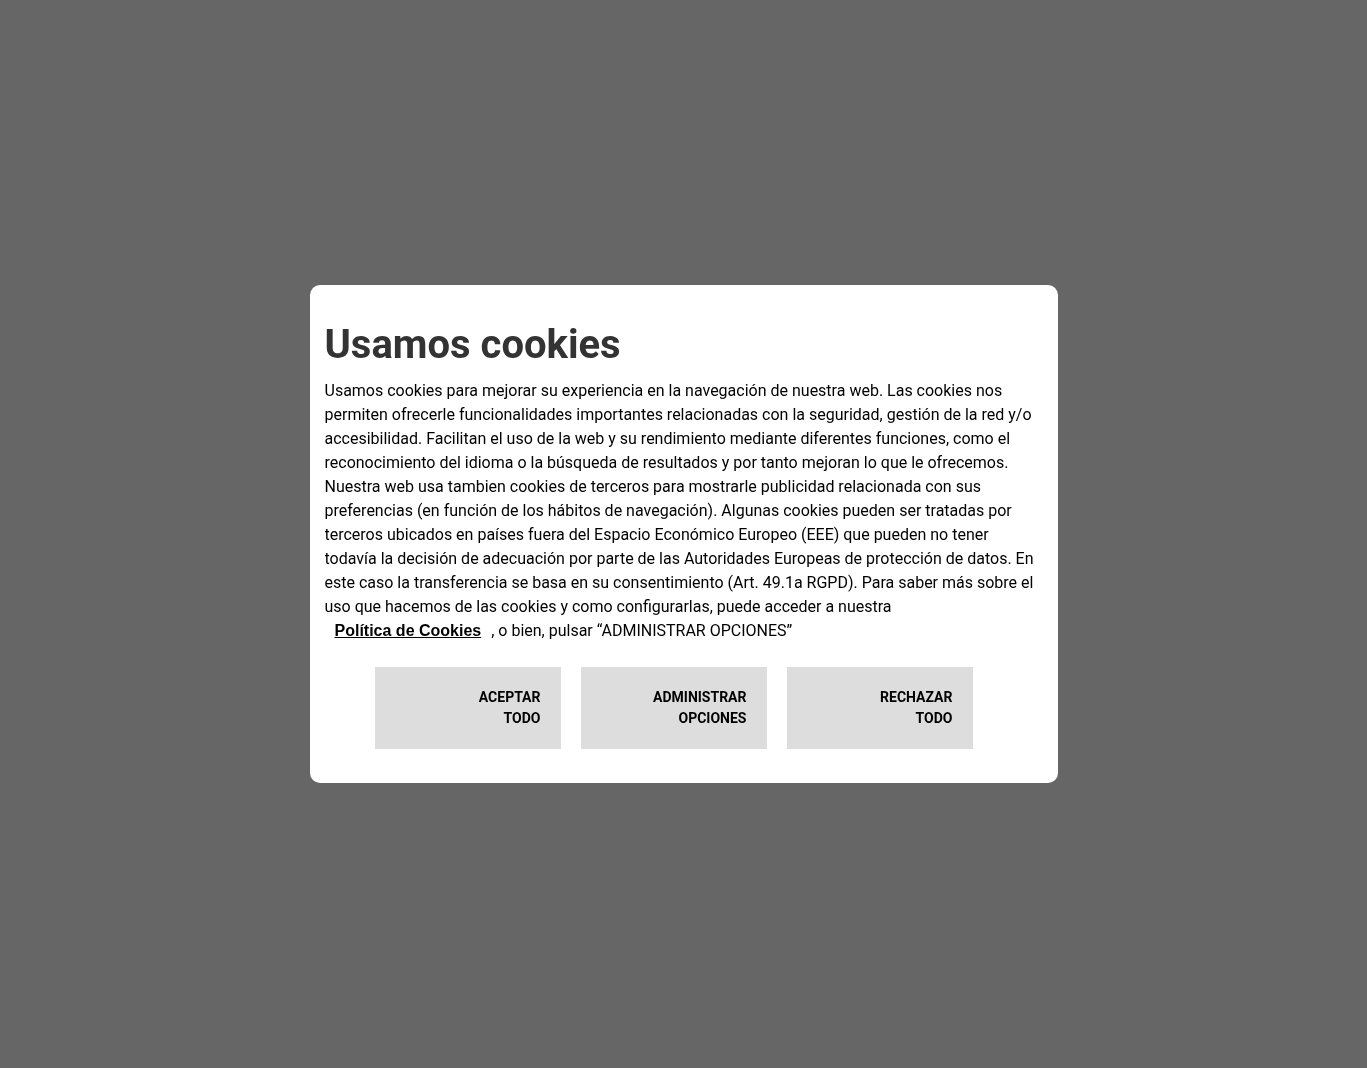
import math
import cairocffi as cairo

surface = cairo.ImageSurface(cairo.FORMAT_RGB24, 1367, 1068)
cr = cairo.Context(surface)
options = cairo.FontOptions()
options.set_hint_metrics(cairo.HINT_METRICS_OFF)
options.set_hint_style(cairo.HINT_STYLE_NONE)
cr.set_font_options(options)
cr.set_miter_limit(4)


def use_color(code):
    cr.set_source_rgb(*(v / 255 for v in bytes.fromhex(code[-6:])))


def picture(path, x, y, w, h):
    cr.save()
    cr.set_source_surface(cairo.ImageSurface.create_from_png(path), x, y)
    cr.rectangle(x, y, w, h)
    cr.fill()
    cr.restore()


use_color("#ffffff")
cr.paint()
picture("img1.png", 0, 0, 1367, 1068)
surface.write_to_png("result.png")
